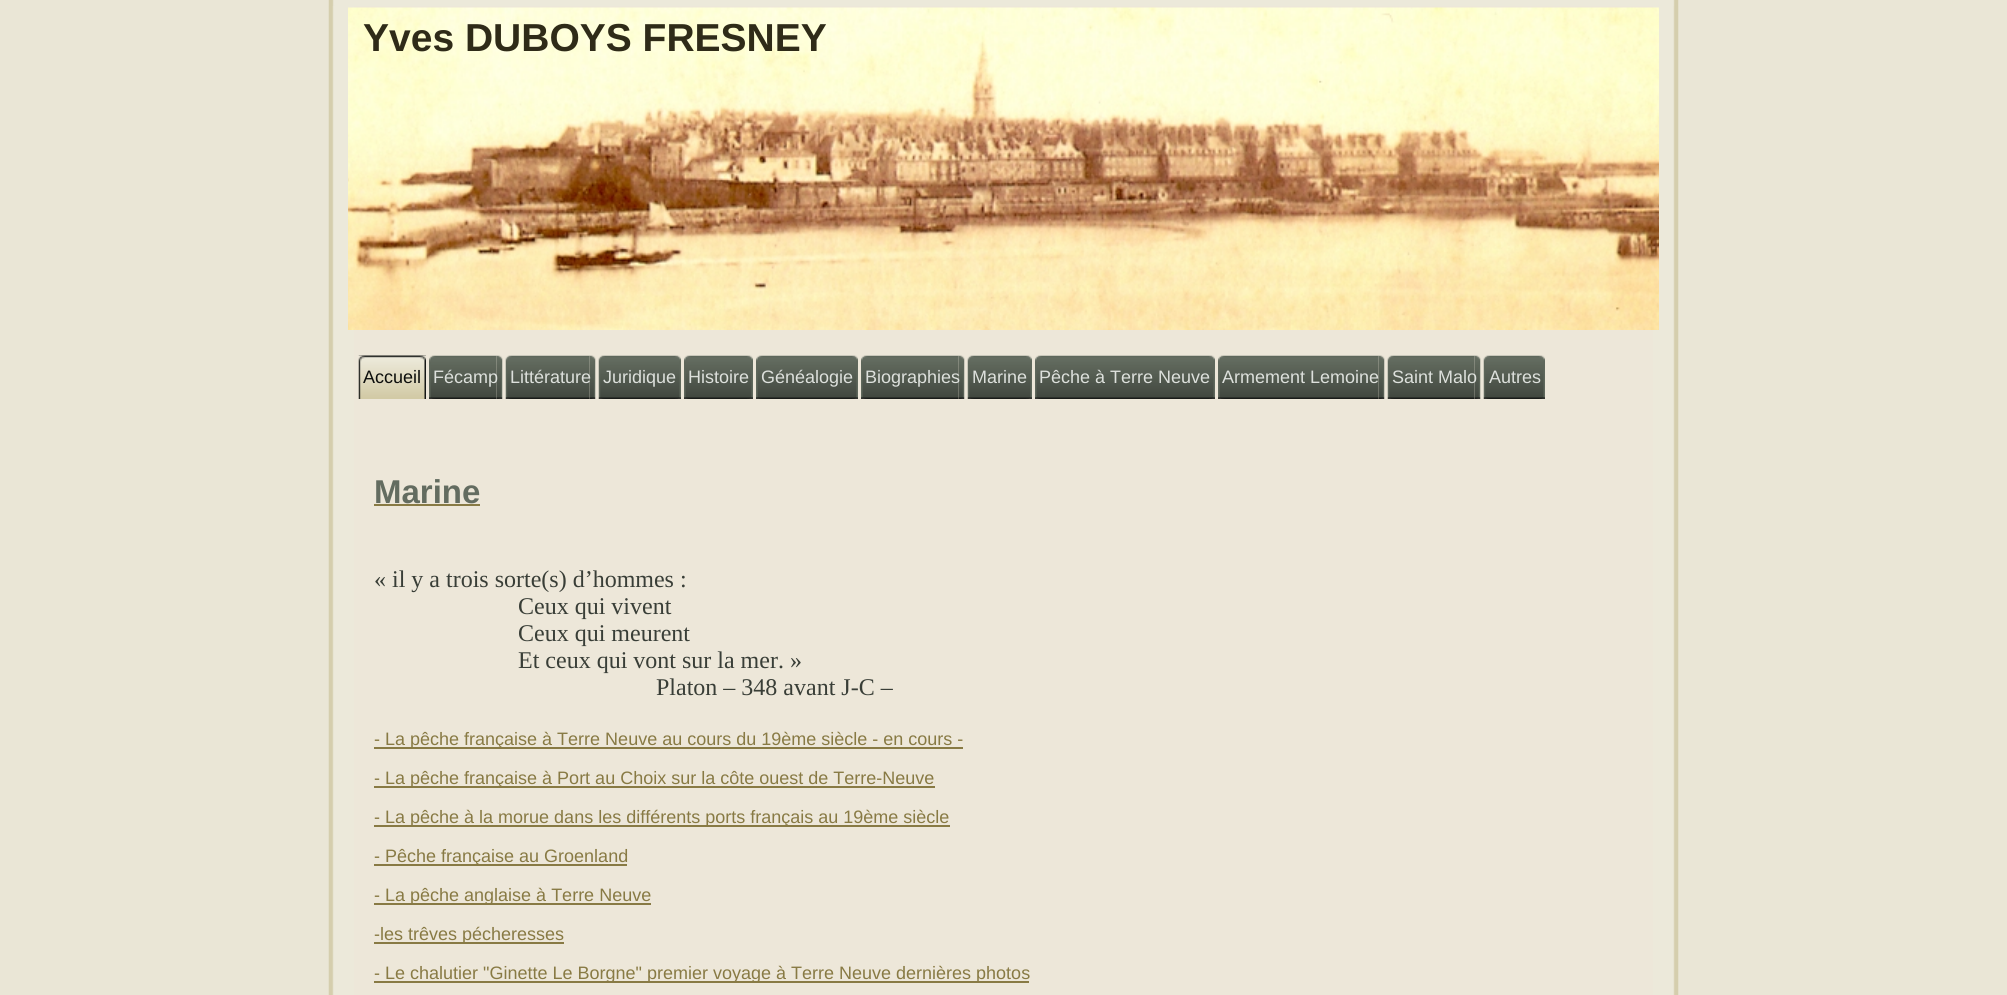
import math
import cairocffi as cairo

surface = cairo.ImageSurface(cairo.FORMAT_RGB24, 2007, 995)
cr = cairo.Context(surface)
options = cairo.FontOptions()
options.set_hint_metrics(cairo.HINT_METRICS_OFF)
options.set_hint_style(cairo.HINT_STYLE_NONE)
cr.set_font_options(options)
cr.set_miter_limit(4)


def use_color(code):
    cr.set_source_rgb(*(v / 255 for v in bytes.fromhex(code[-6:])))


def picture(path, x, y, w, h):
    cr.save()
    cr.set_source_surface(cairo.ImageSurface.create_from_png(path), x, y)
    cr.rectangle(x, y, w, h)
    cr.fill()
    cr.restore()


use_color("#eae6d6")
cr.paint()
picture("img1.png", 328, 0, 26, 6)
use_color("#ece9da")
cr.rectangle(354, 0, 1299, 6)
cr.fill()
picture("img2.png", 1653, 0, 26, 6)
picture("img3.png", 328, 6, 26, 989)
use_color("#ede7d9")
cr.rectangle(354, 6, 1299, 989)
cr.fill()
picture("img4.png", 1653, 6, 26, 989)
picture("img5.png", 348, 7, 1311, 323)
cr.select_font_face("Liberation Sans", cairo.FONT_SLANT_NORMAL, cairo.FONT_WEIGHT_BOLD)
cr.set_font_size(39)
use_color("#2f2b18")
cr.move_to(363, 51)
cr.show_text("Yves DUBOYS FRESNEY")
picture("img6.png", 358, 355, 62, 44)
picture("img7.png", 420, 355, 6, 44)
cr.select_font_face("Liberation Sans")
cr.set_font_size(18)
use_color("#0c0e0c")
cr.move_to(363, 383)
cr.show_text("Accueil")
picture("img8.png", 429, 355, 68, 44)
picture("img9.png", 496, 355, 7, 44)
use_color("#dde0dc")
cr.move_to(433, 383)
cr.show_text("Fécamp")
picture("img10.png", 505, 355, 85, 44)
picture("img9.png", 589, 355, 7, 44)
cr.move_to(510, 383)
cr.show_text("Littérature")
picture("img11.png", 598, 355, 77, 44)
picture("img12.png", 675, 355, 6, 44)
cr.move_to(603, 383)
cr.show_text("Juridique")
picture("img13.png", 684, 355, 63, 44)
picture("img12.png", 747, 355, 6, 44)
cr.move_to(688, 383)
cr.show_text("Histoire")
picture("img14.png", 756, 355, 96, 44)
picture("img12.png", 852, 355, 6, 44)
cr.move_to(761, 383)
cr.show_text("Généalogie")
picture("img15.png", 861, 355, 98, 44)
picture("img9.png", 958, 355, 7, 44)
cr.move_to(865, 383)
cr.show_text("Biographies")
picture("img16.png", 967, 355, 59, 44)
picture("img12.png", 1026, 355, 6, 44)
cr.move_to(972, 383)
cr.show_text("Marine")
picture("img17.png", 1035, 355, 174, 44)
picture("img12.png", 1209, 355, 6, 44)
cr.move_to(1039, 383)
cr.show_text("Pêche à Terre Neuve")
picture("img18.png", 1218, 355, 161, 44)
picture("img9.png", 1378, 355, 7, 44)
cr.move_to(1222, 383)
cr.show_text("Armement Lemoine")
picture("img19.png", 1387, 355, 88, 44)
picture("img9.png", 1474, 355, 7, 44)
cr.move_to(1392, 383)
cr.show_text("Saint Malo")
picture("img20.png", 1483, 355, 56, 44)
picture("img12.png", 1539, 355, 6, 44)
cr.move_to(1489, 383)
cr.show_text("Autres")
cr.select_font_face("Liberation Sans", cairo.FONT_SLANT_NORMAL, cairo.FONT_WEIGHT_BOLD)
cr.set_font_size(33)
use_color("#636c60")
cr.move_to(374, 503)
cr.show_text("Marine")
use_color("#887a44")
cr.rectangle(374, 504, 106, 2)
cr.fill()
cr.select_font_face("Liberation Serif")
cr.set_font_size(24)
use_color("#393e37")
cr.move_to(374, 587)
cr.show_text("« il y a trois sorte(s) d’hommes :")
cr.move_to(518, 614)
cr.show_text("Ceux qui vivent")
cr.move_to(518, 641)
cr.show_text("Ceux qui meurent")
cr.move_to(518, 668)
cr.show_text("Et ceux qui vont sur la mer. »")
cr.move_to(656, 695)
cr.show_text("Platon – 348 avant J-C –")
use_color("#887a44")
cr.rectangle(374, 747, 589, 2)
cr.fill()
cr.select_font_face("Liberation Sans")
cr.set_font_size(18)
cr.move_to(374, 745)
cr.show_text("- La pêche française à Terre Neuve au cours du 19ème siècle - en cours -")
cr.rectangle(374, 786, 561, 2)
cr.fill()
cr.move_to(374, 784)
cr.show_text("- La pêche française à Port au Choix sur la côte ouest de Terre-Neuve")
cr.rectangle(374, 825, 576, 2)
cr.fill()
cr.move_to(374, 823)
cr.show_text("- La pêche à la morue dans les différents ports français au 19ème siècle")
cr.rectangle(374, 864, 253, 2)
cr.fill()
cr.move_to(374, 862)
cr.show_text("- Pêche française au Groenland")
cr.rectangle(374, 903, 277, 2)
cr.fill()
cr.move_to(374, 901)
cr.show_text("- La pêche anglaise à Terre Neuve")
cr.rectangle(374, 942, 190, 2)
cr.fill()
cr.move_to(374, 940)
cr.show_text("-les trêves pécheresses")
cr.rectangle(374, 981, 655, 2)
cr.fill()
cr.move_to(374, 979)
cr.show_text("- Le chalutier \"Ginette Le Borgne\" premier voyage à Terre Neuve dernières photos")
surface.write_to_png("result.png")
